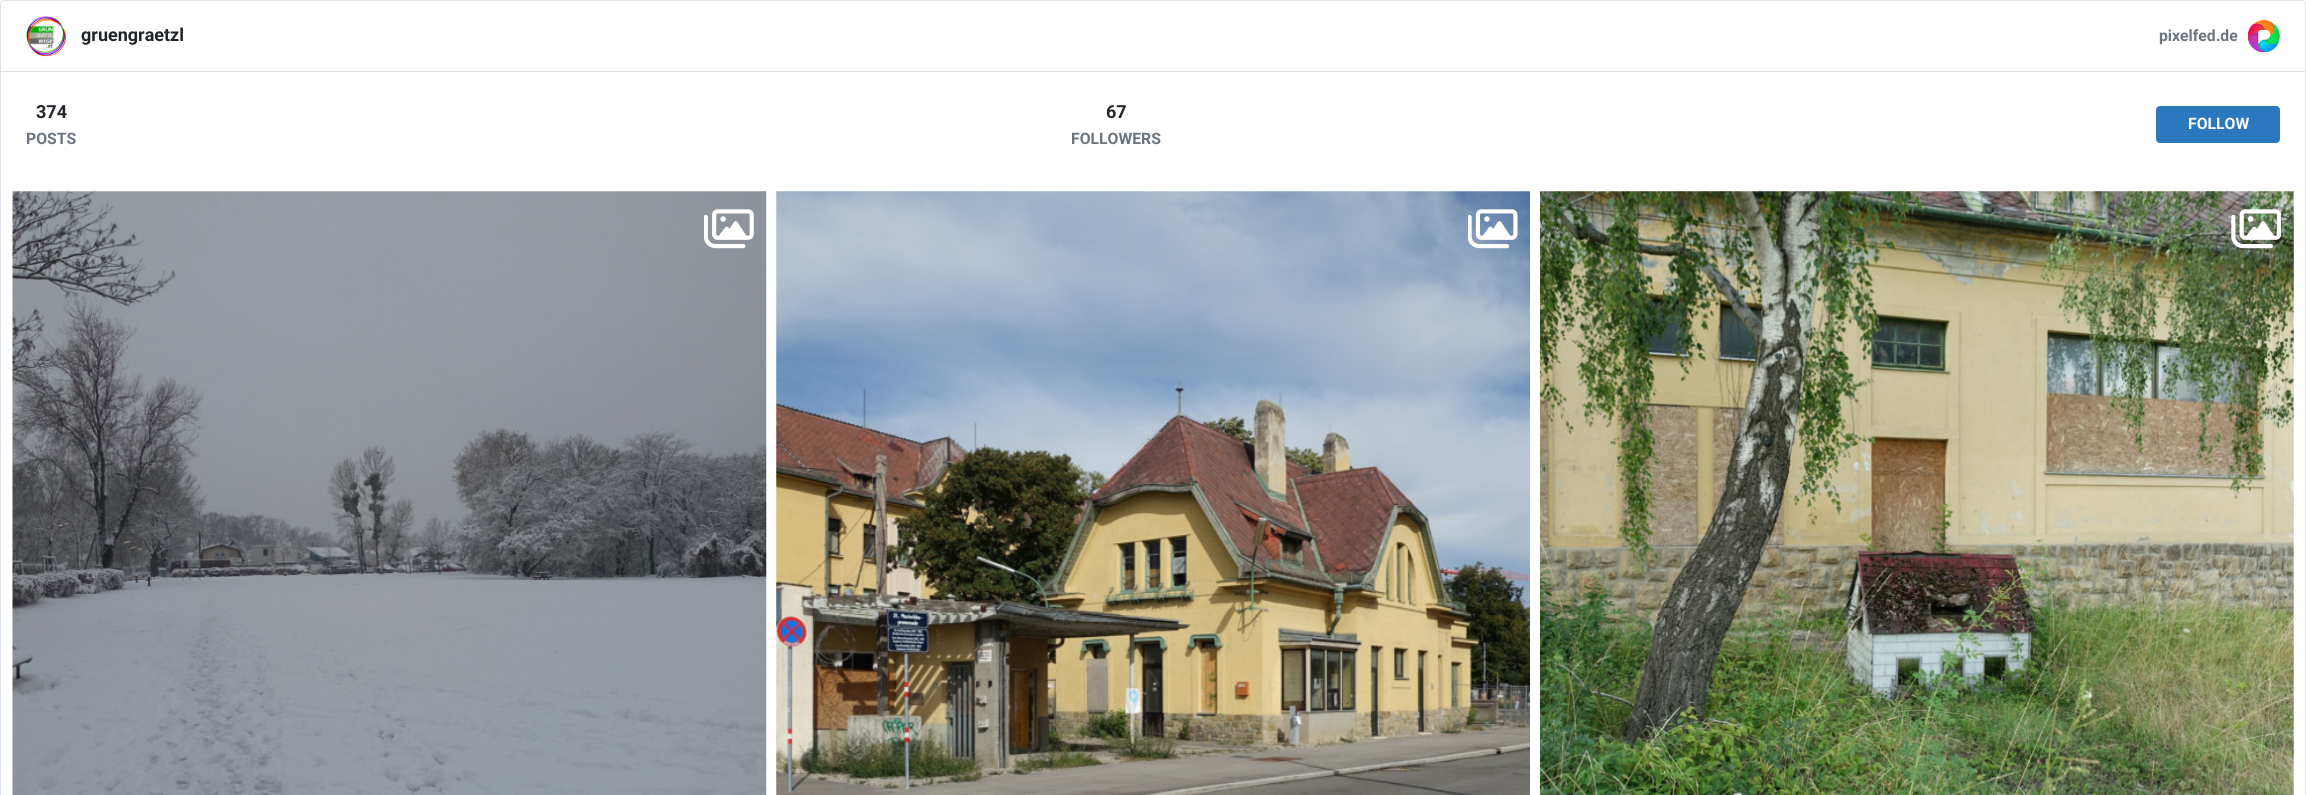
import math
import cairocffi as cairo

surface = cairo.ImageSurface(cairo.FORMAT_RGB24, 2306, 795)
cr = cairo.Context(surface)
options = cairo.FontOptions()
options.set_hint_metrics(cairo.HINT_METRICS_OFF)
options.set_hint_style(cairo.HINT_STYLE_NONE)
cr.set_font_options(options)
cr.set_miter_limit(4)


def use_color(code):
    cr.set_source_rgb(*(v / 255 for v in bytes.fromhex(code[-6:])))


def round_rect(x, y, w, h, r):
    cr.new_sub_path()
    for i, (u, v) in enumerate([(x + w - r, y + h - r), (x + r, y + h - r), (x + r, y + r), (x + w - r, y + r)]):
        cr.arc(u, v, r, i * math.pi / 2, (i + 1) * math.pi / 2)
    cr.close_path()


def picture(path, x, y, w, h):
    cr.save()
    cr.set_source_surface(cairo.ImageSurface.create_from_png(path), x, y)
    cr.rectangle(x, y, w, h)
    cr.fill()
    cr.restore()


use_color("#ffffff")
cr.paint()
round_rect(0.5, 0.5, 2305, 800, 4.5)
use_color("#dee2e6")
cr.set_line_width(1)
cr.stroke()
use_color("#ffffff")
cr.new_path()
cr.move_to(5, 1)
cr.line_to(2301, 1)
cr.curve_to(2303, 1, 2305, 3, 2305, 5)
cr.line_to(2305, 73)
cr.line_to(1, 73)
cr.line_to(1, 5)
cr.curve_to(1, 3, 3, 1, 5, 1)
cr.close_path()
cr.fill()
use_color("#dfdfdf")
cr.rectangle(1, 71, 2304, 1)
cr.fill()
picture("img1.png", 26, 16, 41, 41)
cr.select_font_face("Roboto", cairo.FONT_SLANT_NORMAL, cairo.FONT_WEIGHT_BOLD)
cr.set_font_size(18)
use_color("#212529")
cr.move_to(81, 41)
cr.show_text("gruengraetzl")
cr.set_font_size(15.75)
use_color("#6c757d")
cr.move_to(2159, 41)
cr.show_text("pixelfed.de")
picture("img2.png", 2248, 20, 32, 33)
cr.set_font_size(18)
use_color("#212529")
cr.move_to(36, 118)
cr.show_text("374")
cr.set_font_size(15.75)
use_color("#6c757d")
cr.move_to(26, 144)
cr.show_text("POSTS")
cr.set_font_size(18)
use_color("#212529")
cr.move_to(1106, 118)
cr.show_text("67")
cr.set_font_size(15.75)
use_color("#6c757d")
cr.move_to(1071, 144)
cr.show_text("FOLLOWERS")
use_color("#2c78bf")
round_rect(2156.5, 106.5, 123, 36, 3.5)
cr.fill_preserve()
cr.stroke()
use_color("#ffffff")
cr.move_to(2188, 129)
cr.show_text("FOLLOW")
picture("img3.png", 12, 191, 755, 604)
picture("img4.png", 704, 209, 50, 40)
picture("img5.png", 776, 191, 754, 604)
picture("img6.png", 1468, 209, 50, 40)
picture("img7.png", 1540, 191, 754, 604)
picture("img8.png", 2231, 209, 50, 40)
surface.write_to_png("result.png")
